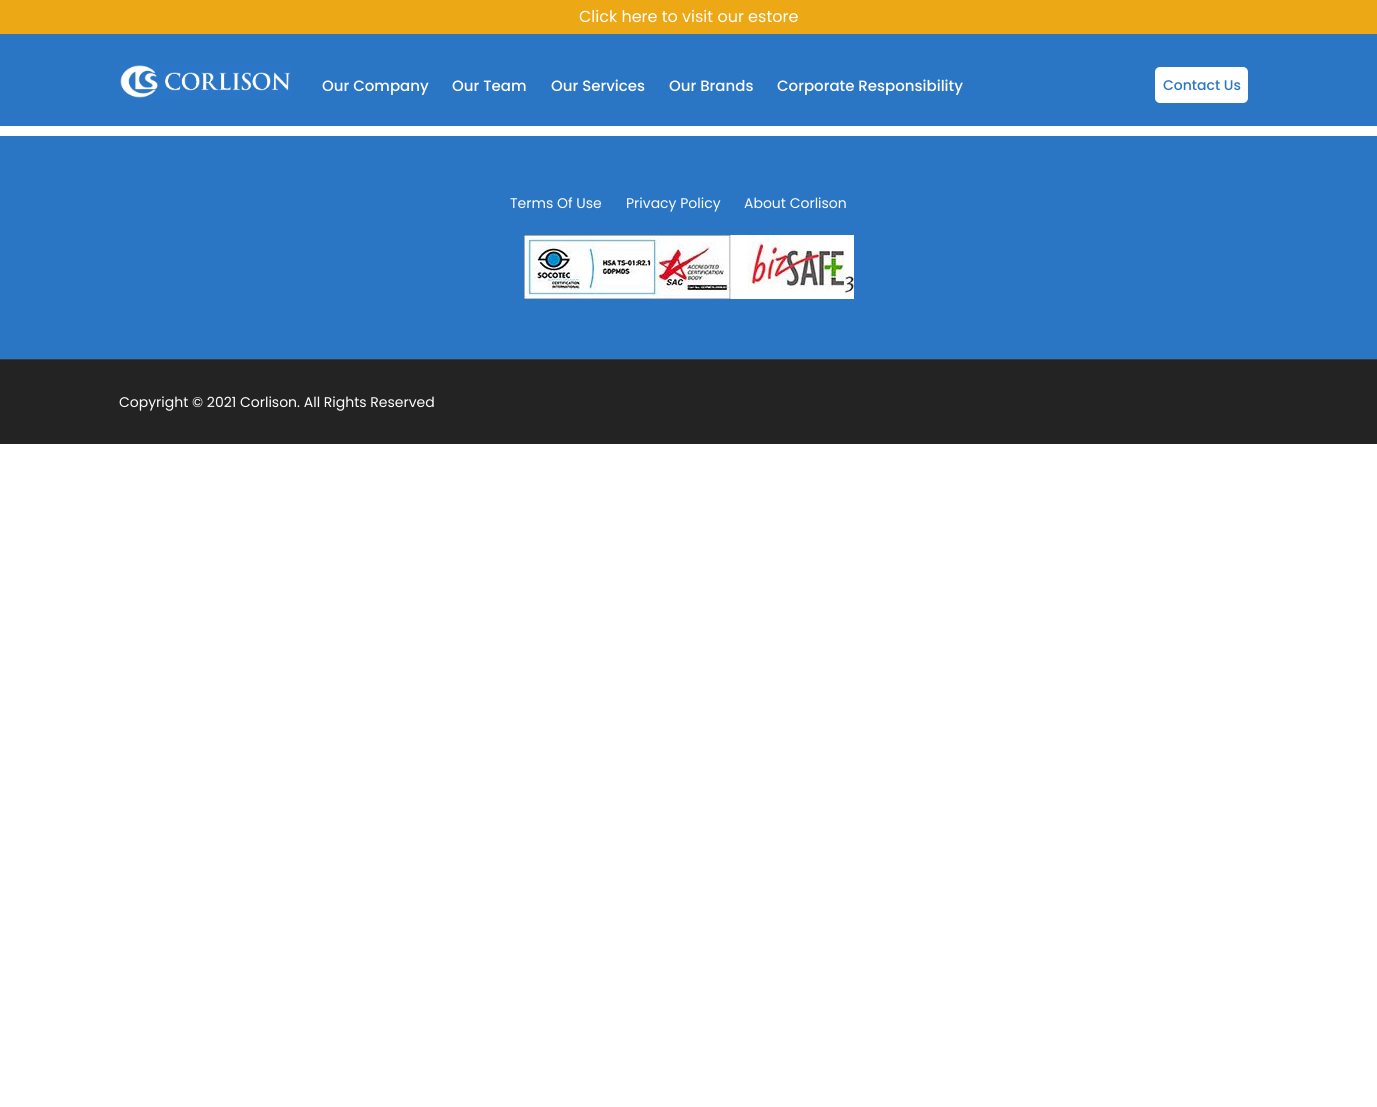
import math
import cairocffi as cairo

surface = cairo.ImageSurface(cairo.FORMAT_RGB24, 1377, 1107)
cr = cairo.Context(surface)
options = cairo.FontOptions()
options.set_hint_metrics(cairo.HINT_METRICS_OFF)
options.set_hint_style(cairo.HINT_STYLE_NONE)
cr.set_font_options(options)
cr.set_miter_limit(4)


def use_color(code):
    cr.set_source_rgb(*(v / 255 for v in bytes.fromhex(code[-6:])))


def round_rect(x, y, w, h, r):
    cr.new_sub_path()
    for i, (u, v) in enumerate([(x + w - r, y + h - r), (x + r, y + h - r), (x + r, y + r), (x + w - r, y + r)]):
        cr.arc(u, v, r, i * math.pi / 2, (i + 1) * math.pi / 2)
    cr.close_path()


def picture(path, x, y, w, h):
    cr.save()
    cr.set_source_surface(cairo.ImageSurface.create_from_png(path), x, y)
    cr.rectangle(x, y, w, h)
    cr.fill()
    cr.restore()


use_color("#ffffff")
cr.paint()
use_color("#eda816")
cr.rectangle(0, 0, 1377, 34)
cr.fill()
cr.select_font_face("Poppins")
cr.set_font_size(16)
use_color("#ffffff")
cr.move_to(579, 22)
cr.show_text("Click here to visit our estore")
use_color("#2b76c4")
cr.rectangle(0, 34, 1377, 92)
cr.fill()
picture("img1.png", 120, 65, 171, 33)
cr.select_font_face("Poppins Medium")
cr.set_font_size(15)
use_color("#ffffff")
cr.move_to(322, 91)
cr.show_text("Our Company")
cr.move_to(452, 91)
cr.show_text("Our Team")
cr.move_to(551, 91)
cr.show_text("Our Services")
cr.move_to(669, 91)
cr.show_text("Our Brands")
cr.move_to(777, 91)
cr.show_text("Corporate Responsibility")
round_rect(1155, 67, 93, 36, 5)
cr.fill()
cr.set_font_size(14)
use_color("#2b76c4")
cr.move_to(1163, 90)
cr.show_text("Contact Us")
cr.rectangle(0, 136, 1377, 223)
cr.fill()
cr.select_font_face("Poppins")
use_color("#ffffff")
cr.move_to(510, 208)
cr.show_text("Terms Of Use")
cr.move_to(626, 208)
cr.show_text("Privacy Policy")
cr.move_to(744, 208)
cr.show_text("About Corlison")
picture("img2.png", 524, 235, 330, 64)
use_color("#232323")
cr.rectangle(0, 360, 1377, 84)
cr.fill()
use_color("#393939")
cr.rectangle(0, 359, 1377, 1)
cr.fill()
use_color("#ffffff")
cr.move_to(119, 407)
cr.show_text("Copyright © 2021 Corlison. All Rights Reserved")
surface.write_to_png("result.png")
